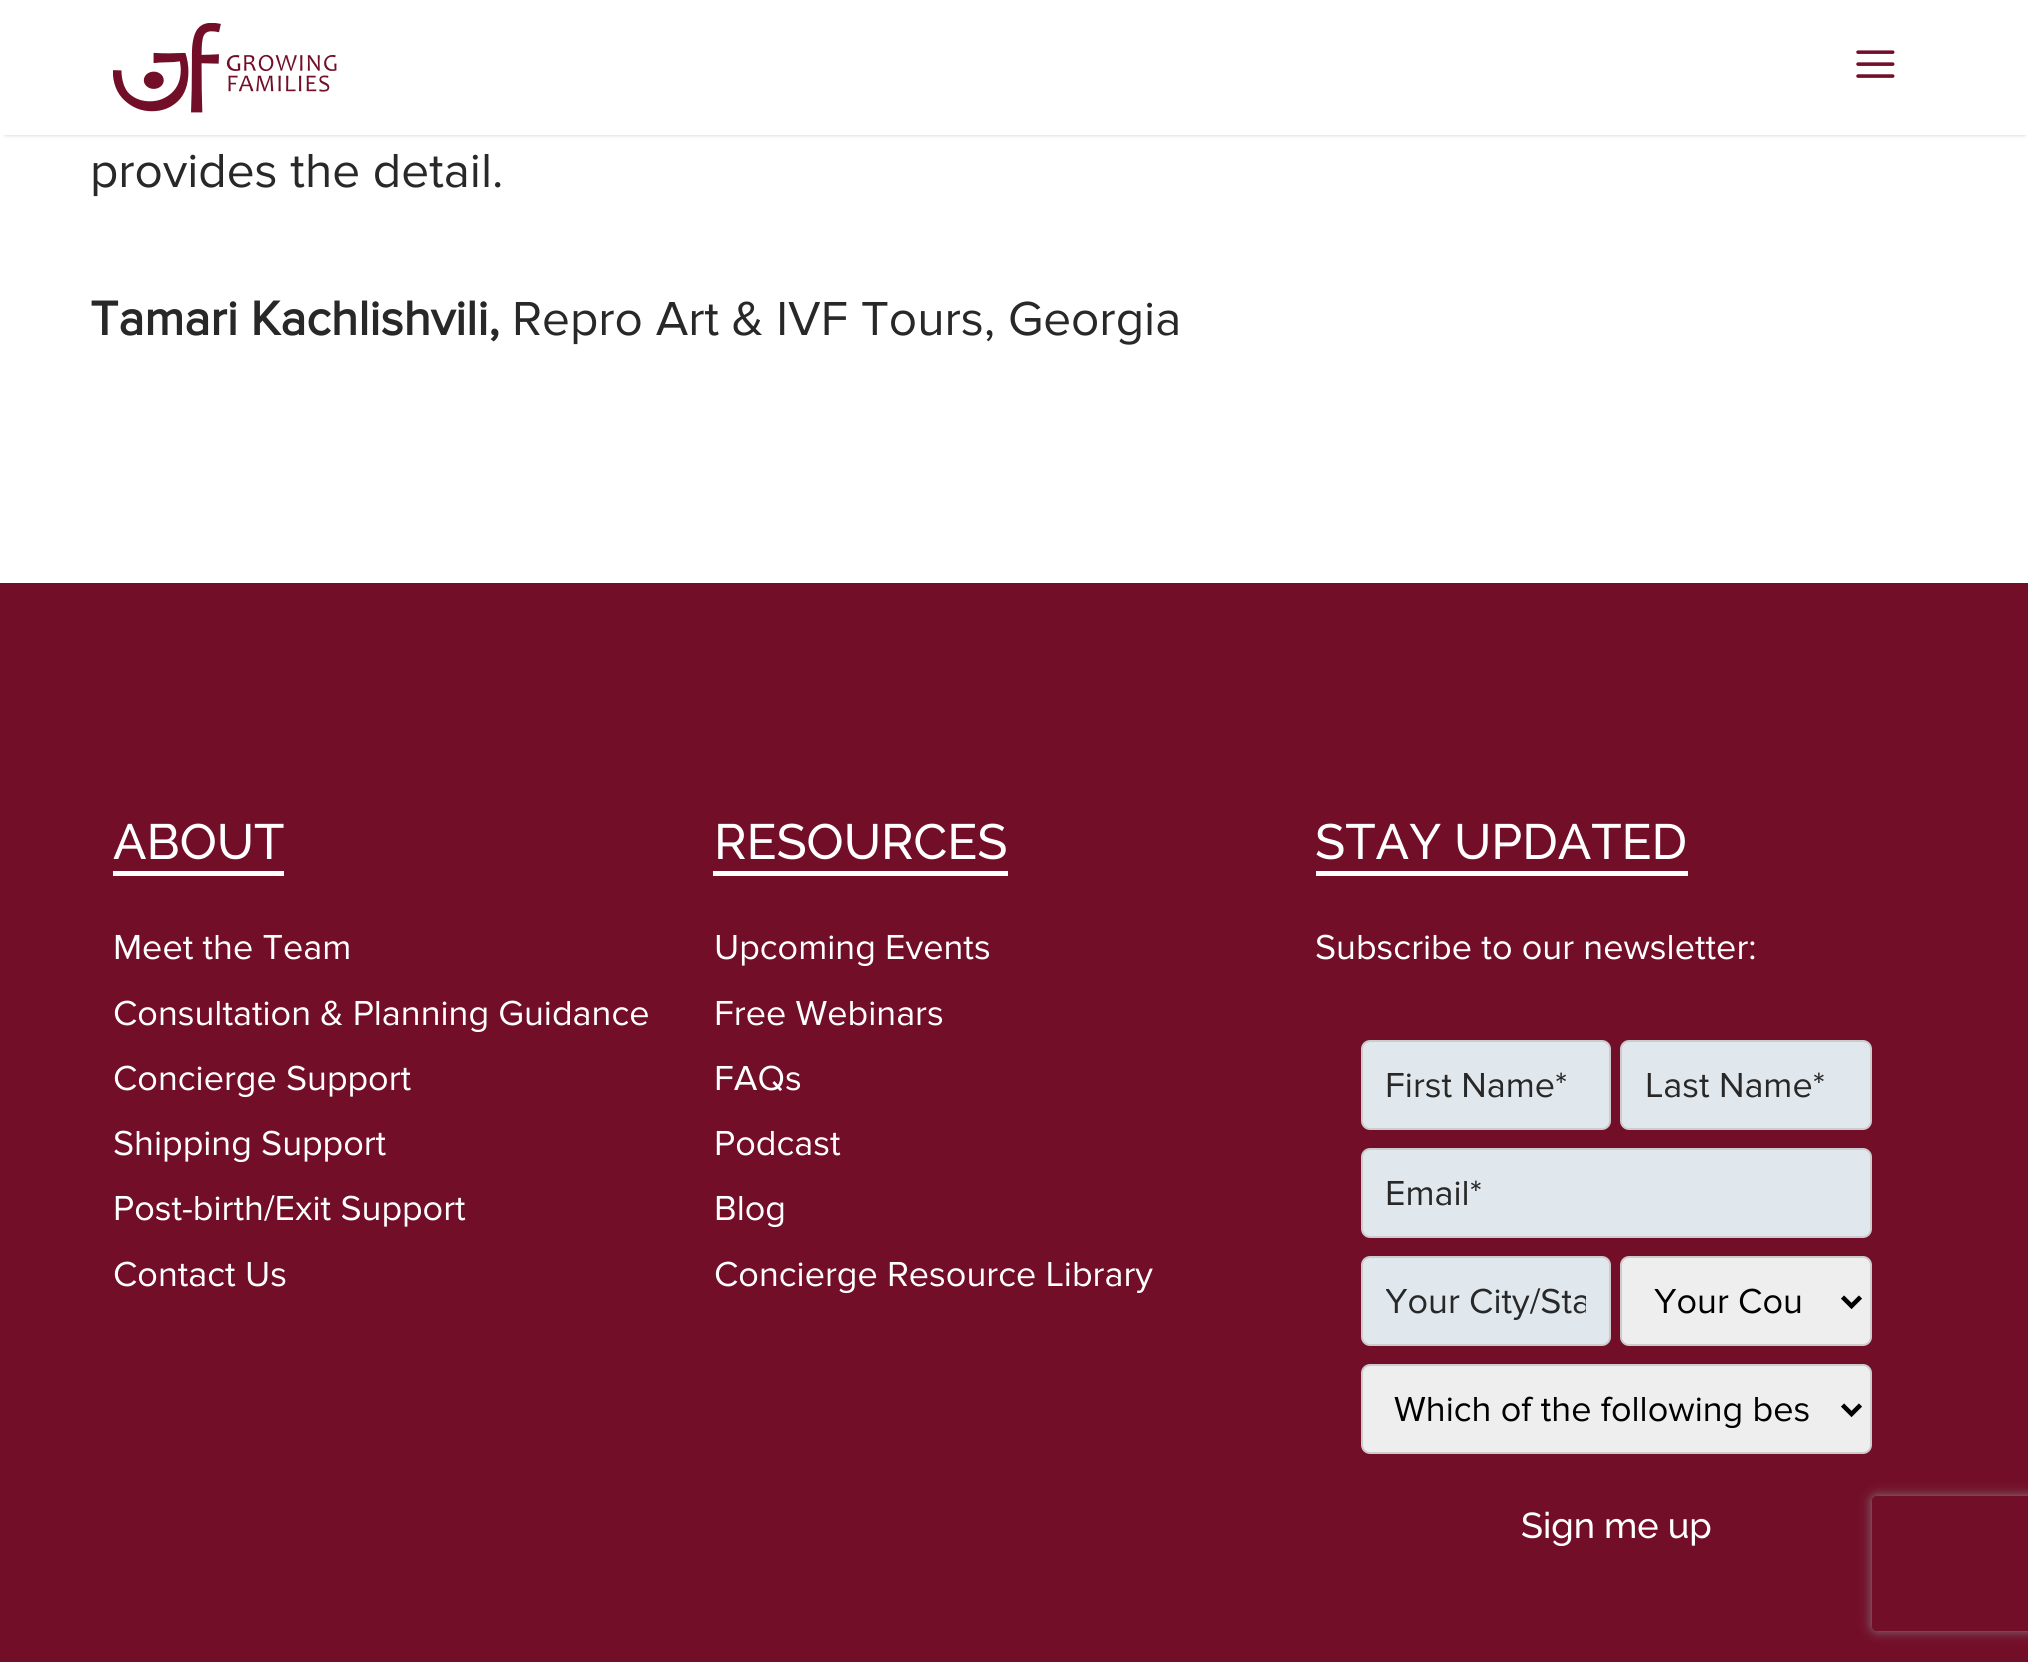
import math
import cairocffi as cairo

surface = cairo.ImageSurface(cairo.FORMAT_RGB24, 2028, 1662)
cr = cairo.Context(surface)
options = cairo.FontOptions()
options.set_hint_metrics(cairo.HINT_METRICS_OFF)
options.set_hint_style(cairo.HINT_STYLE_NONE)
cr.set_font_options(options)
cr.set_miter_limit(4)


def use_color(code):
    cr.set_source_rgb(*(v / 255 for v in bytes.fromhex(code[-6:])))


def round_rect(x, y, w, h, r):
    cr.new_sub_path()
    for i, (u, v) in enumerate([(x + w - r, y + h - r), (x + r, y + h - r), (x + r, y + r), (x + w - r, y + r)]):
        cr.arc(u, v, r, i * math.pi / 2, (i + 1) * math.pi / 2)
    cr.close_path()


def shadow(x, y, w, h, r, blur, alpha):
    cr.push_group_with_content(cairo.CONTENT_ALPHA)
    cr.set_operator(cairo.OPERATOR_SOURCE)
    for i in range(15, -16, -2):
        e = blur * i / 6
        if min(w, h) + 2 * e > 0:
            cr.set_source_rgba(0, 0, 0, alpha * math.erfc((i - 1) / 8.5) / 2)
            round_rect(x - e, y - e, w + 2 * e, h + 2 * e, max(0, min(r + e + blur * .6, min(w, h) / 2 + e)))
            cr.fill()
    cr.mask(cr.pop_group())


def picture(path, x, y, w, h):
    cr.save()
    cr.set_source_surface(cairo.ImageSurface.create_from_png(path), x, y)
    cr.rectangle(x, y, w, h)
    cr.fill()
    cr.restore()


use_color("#ffffff")
cr.paint()
use_color("#000000")
shadow(5, 9, 2020, 126, 0, 2, 0.2)
use_color("#ffffff")
cr.rectangle(2, 6, 2026, 129)
cr.fill()
picture("img1.png", 113, 23, 224, 90)
picture("img2.png", 1856, 50, 39, 28)
cr.select_font_face("Proxima Nova")
cr.set_font_size(49.5)
use_color("#282828")
cr.move_to(90, 187)
cr.show_text("provides the detail.")
cr.select_font_face("Proxima Nova", cairo.FONT_SLANT_NORMAL, cairo.FONT_WEIGHT_BOLD)
cr.move_to(90, 335)
cr.show_text("Tamari Kachlishvili,")
cr.select_font_face("Proxima Nova")
cr.move_to(512, 335)
cr.show_text("Repro Art & IVF Tours, Georgia")
use_color("#730e29")
cr.rectangle(0, 583, 2028, 1079)
cr.fill()
use_color("#ffffff")
cr.rectangle(113, 871, 171, 5)
cr.fill()
cr.select_font_face("Raleway Medium")
cr.move_to(113, 859)
cr.show_text("ABOUT")
cr.select_font_face("Proxima Nova")
cr.set_font_size(36)
cr.move_to(113, 959)
cr.show_text("Meet the Team")
cr.move_to(113, 1025)
cr.show_text("Consultation & Planning Guidance")
cr.move_to(113, 1090)
cr.show_text("Concierge Support")
cr.move_to(113, 1155)
cr.show_text("Shipping Support")
cr.move_to(113, 1220)
cr.show_text("Post-birth/Exit Support")
cr.move_to(113, 1286)
cr.show_text("Contact Us")
cr.rectangle(713, 871, 295, 5)
cr.fill()
cr.select_font_face("Raleway Medium")
cr.set_font_size(49.5)
cr.move_to(714, 859)
cr.show_text("RESOURCES")
cr.select_font_face("Proxima Nova")
cr.set_font_size(36)
cr.move_to(714, 959)
cr.show_text("Upcoming Events")
cr.move_to(714, 1025)
cr.show_text("Free Webinars")
cr.move_to(714, 1090)
cr.show_text("FAQs")
cr.move_to(714, 1155)
cr.show_text("Podcast")
cr.move_to(714, 1220)
cr.show_text("Blog")
cr.move_to(714, 1286)
cr.show_text("Concierge Resource Library")
cr.rectangle(1316, 871, 372, 5)
cr.fill()
cr.select_font_face("Raleway Medium")
cr.set_font_size(49.5)
cr.move_to(1315, 859)
cr.show_text("STAY UPDATED")
cr.select_font_face("Proxima Nova")
cr.set_font_size(36)
cr.move_to(1315, 959)
cr.show_text("Subscribe to our newsletter:")
use_color("#e1e8ed")
round_rect(1362, 1041, 248, 88, 8)
cr.fill_preserve()
use_color("#cccccc")
cr.stroke()
use_color("#282828")
cr.move_to(1385, 1097)
cr.show_text("First Name*")
use_color("#e1e8ed")
round_rect(1621, 1041, 250, 88, 8)
cr.fill_preserve()
use_color("#cccccc")
cr.stroke()
use_color("#282828")
cr.move_to(1645, 1097)
cr.show_text("Last Name*")
use_color("#e1e8ed")
round_rect(1362, 1149, 509, 88, 8)
cr.fill_preserve()
use_color("#cccccc")
cr.stroke()
use_color("#282828")
cr.move_to(1385, 1205)
cr.show_text("Email*")
use_color("#e1e8ed")
round_rect(1362, 1257, 248, 88, 8)
cr.fill_preserve()
use_color("#cccccc")
cr.stroke()
cr.save()
cr.rectangle(1386, 1278, 200, 45)
cr.clip()
use_color("#282828")
cr.move_to(1385, 1313)
cr.show_text("Your City/Sta")
cr.restore()
use_color("#eeeeee")
round_rect(1621, 1257, 250, 88, 8)
cr.fill_preserve()
use_color("#cccccc")
cr.stroke()
cr.new_path()
cr.move_to(1842.5, 1297)
cr.line_to(1851.5, 1306)
cr.line_to(1860.5, 1297)
use_color("#000000")
cr.set_line_width(4.5)
cr.stroke()
cr.move_to(1654, 1313)
cr.show_text("Your Cou")
use_color("#eeeeee")
round_rect(1362, 1365, 509, 88, 8)
cr.fill_preserve()
use_color("#cccccc")
cr.set_line_width(2)
cr.stroke()
cr.new_path()
cr.move_to(1842.5, 1405)
cr.line_to(1851.5, 1414)
cr.line_to(1860.5, 1405)
use_color("#000000")
cr.set_line_width(4.5)
cr.stroke()
cr.move_to(1394, 1421)
cr.show_text("Which of the following bes")
cr.select_font_face("Raleway Medium")
use_color("#ffffff")
cr.move_to(1521, 1538)
cr.show_text("Sign me up")
cr.save()
cr.set_fill_rule(cairo.FILL_RULE_EVEN_ODD)
cr.new_path()
cr.move_to(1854, 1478)
cr.line_to(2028, 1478)
cr.line_to(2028, 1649)
cr.line_to(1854, 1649)
cr.close_path()
cr.move_to(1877, 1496)
cr.line_to(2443, 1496)
cr.curve_to(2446, 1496, 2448, 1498, 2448, 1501)
cr.line_to(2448, 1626)
cr.curve_to(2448, 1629, 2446, 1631, 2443, 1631)
cr.line_to(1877, 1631)
cr.curve_to(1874, 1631, 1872, 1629, 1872, 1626)
cr.line_to(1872, 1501)
cr.curve_to(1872, 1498, 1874, 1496, 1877, 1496)
cr.close_path()
cr.clip()
use_color("#808080")
shadow(1872, 1496, 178, 135, 5, 5.5, 1)
cr.restore()
surface.write_to_png("result.png")
